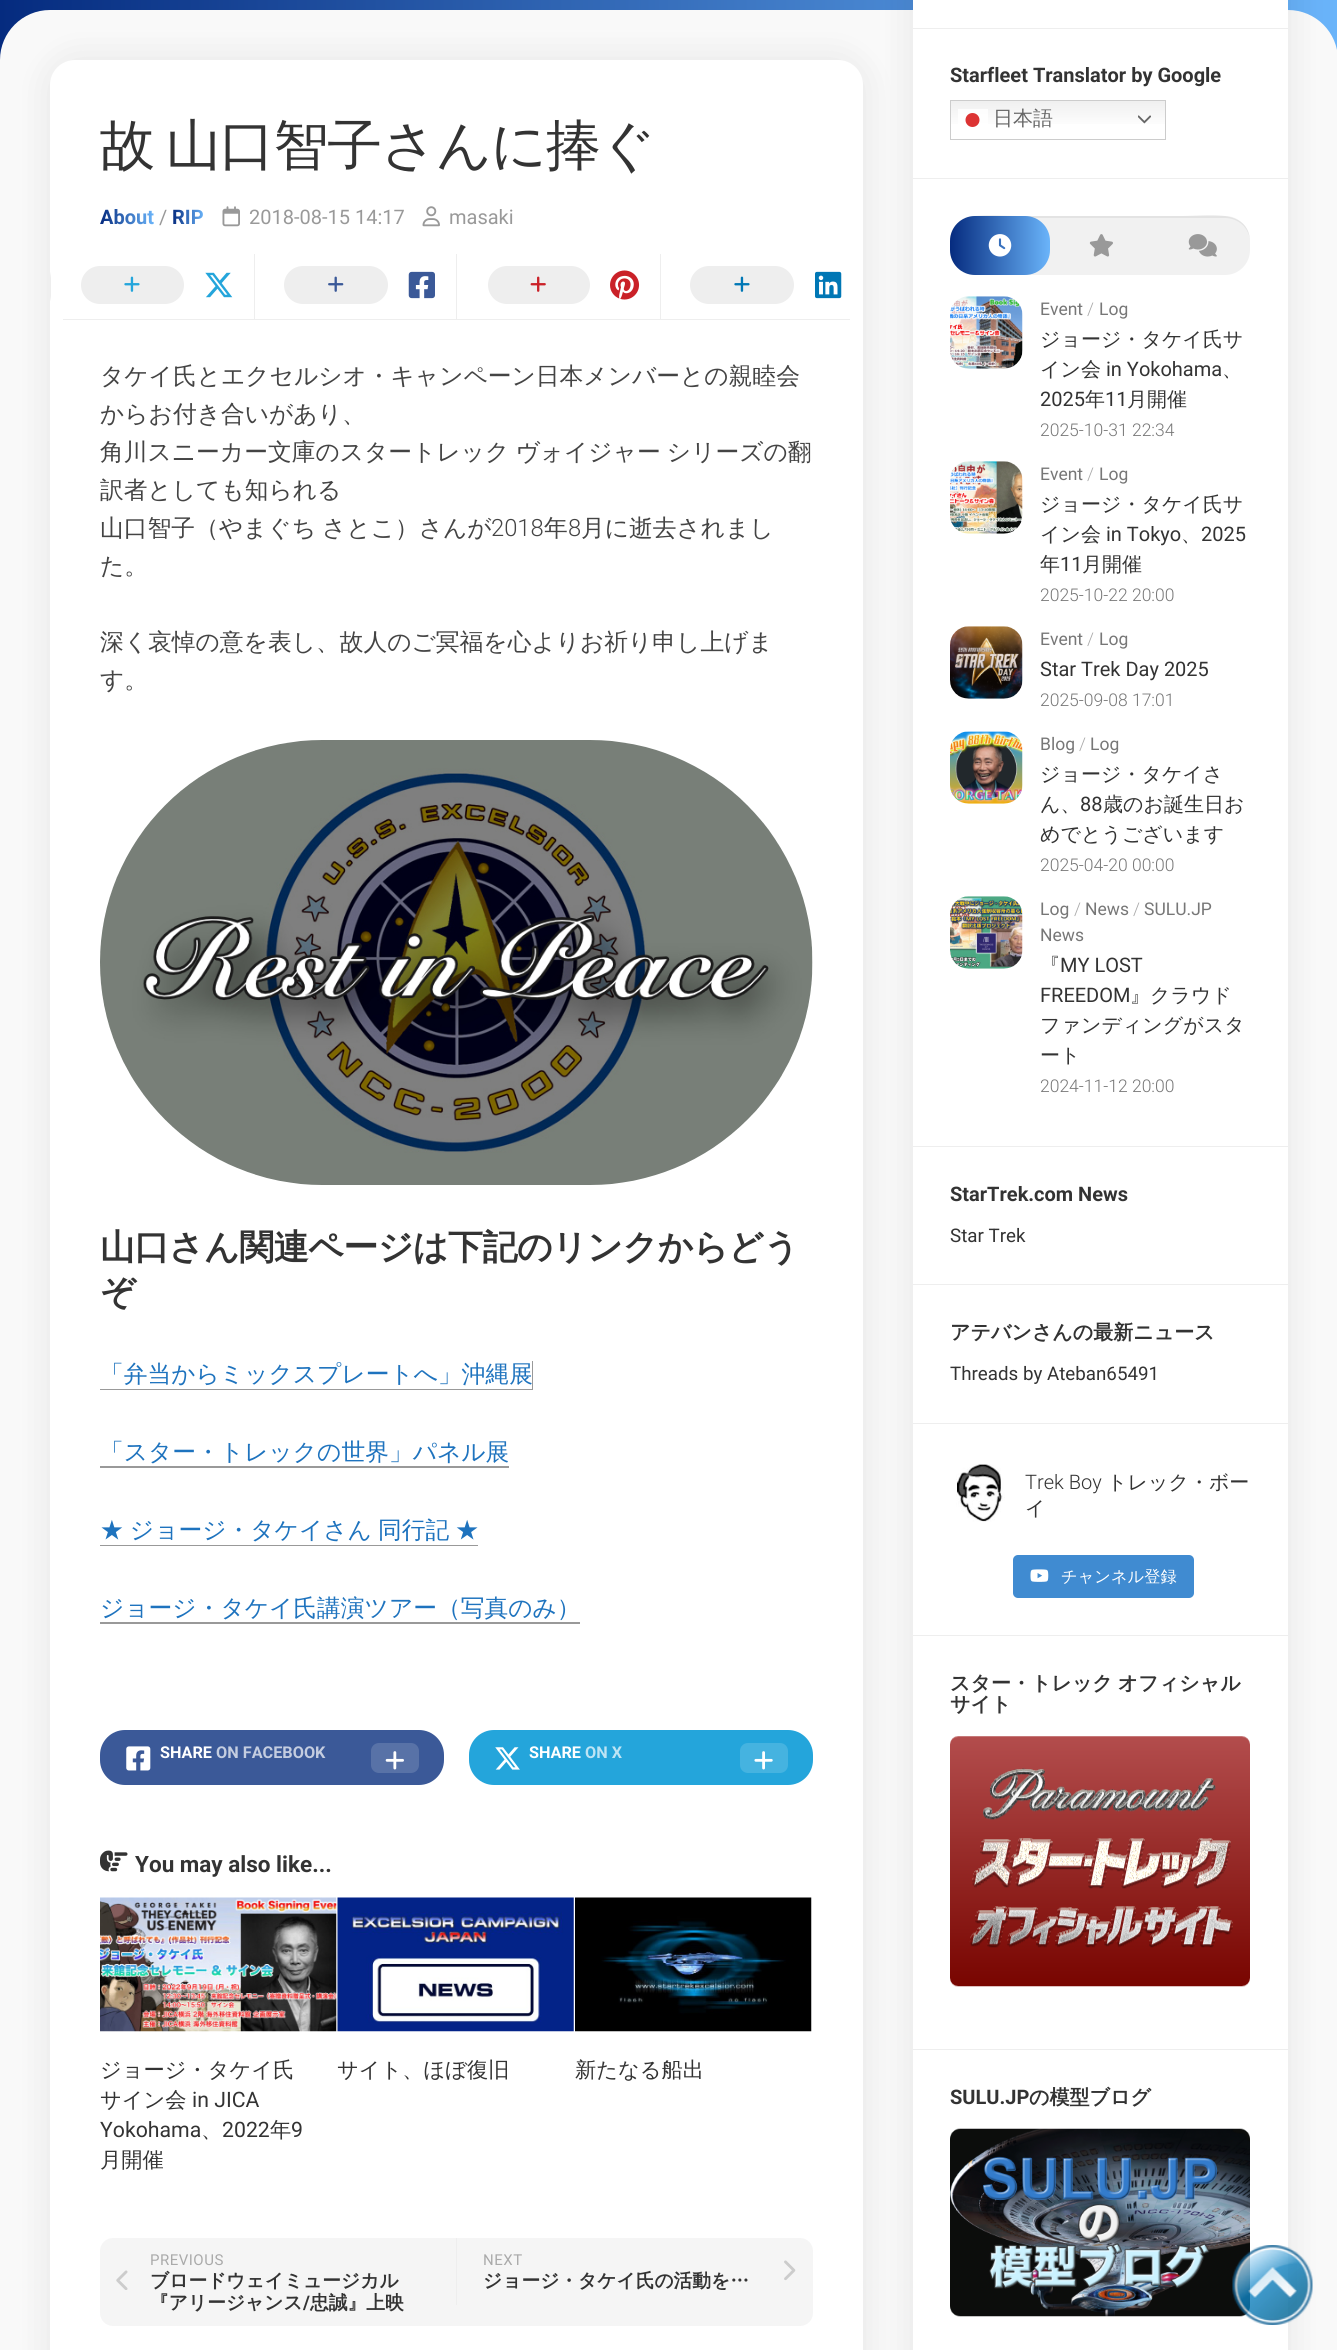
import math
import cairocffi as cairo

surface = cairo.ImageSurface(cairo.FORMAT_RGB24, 1337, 2350)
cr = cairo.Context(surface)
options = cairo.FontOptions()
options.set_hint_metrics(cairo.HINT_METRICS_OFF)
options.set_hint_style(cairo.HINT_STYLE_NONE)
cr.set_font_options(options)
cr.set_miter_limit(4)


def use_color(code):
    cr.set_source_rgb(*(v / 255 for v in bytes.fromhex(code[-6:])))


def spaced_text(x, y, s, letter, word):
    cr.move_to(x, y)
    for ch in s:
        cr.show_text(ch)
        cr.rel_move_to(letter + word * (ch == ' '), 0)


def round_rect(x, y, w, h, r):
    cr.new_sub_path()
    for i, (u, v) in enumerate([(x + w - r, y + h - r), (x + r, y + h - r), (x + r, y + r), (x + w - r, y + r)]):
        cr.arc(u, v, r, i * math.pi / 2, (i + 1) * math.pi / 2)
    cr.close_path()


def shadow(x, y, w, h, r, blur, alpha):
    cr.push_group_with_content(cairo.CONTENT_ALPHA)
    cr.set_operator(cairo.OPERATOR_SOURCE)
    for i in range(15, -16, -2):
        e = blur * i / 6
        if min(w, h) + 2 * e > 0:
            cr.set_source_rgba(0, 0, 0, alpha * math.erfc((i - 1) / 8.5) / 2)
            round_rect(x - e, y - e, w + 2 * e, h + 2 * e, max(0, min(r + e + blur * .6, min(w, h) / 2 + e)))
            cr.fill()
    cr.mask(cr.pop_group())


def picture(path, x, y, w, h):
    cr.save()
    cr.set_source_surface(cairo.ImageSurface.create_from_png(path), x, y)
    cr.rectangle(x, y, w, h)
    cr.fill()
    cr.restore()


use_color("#ffffff")
cr.paint()
gradient = cairo.LinearGradient(0, 1376, 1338, 1376)
gradient.add_color_stop_rgba(0, 0.02, 0.169, 0.498, 1)
gradient.add_color_stop_rgba(1, 0.416, 0.706, 0.98, 1)
cr.set_source(gradient)
cr.rectangle(0, 0, 1337, 60)
cr.fill()
use_color("#f9f9f9")
round_rect(0, 10, 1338, 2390, 50)
cr.fill()
use_color("#000000")
shadow(50, 60, 813, 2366, 25, 19, 0.08)
use_color("#ffffff")
round_rect(50, 60, 813, 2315, 25)
cr.fill()
cr.select_font_face("WenQuanYi Zen Hei Medium")
cr.set_font_size(55)
use_color("#333333")
spaced_text(100, 164, "故 山口智子さんに捧ぐ", -1.25, -3)
cr.select_font_face("Roboto", cairo.FONT_SLANT_NORMAL, cairo.FONT_WEIGHT_BOLD)
cr.set_font_size(20)
gradient = cairo.LinearGradient(154, 217, 100, 217)
gradient.add_color_stop_rgba(0, 0.416, 0.706, 0.98, 1)
gradient.add_color_stop_rgba(1, 0.02, 0.169, 0.498, 1)
cr.set_source(gradient)
cr.move_to(100, 224)
cr.show_text("About")
cr.select_font_face("Roboto")
use_color("#999999")
cr.move_to(159, 224)
cr.show_text("/")
cr.select_font_face("Roboto", cairo.FONT_SLANT_NORMAL, cairo.FONT_WEIGHT_BOLD)
gradient = cairo.LinearGradient(204, 217, 172, 217)
gradient.add_color_stop_rgba(0, 0.416, 0.706, 0.98, 1)
gradient.add_color_stop_rgba(1, 0.02, 0.169, 0.498, 1)
cr.set_source(gradient)
cr.move_to(172, 224)
cr.show_text("RIP")
picture("img1.png", 222, 206, 18, 21)
cr.select_font_face("Roboto")
use_color("#999999")
cr.move_to(249, 224)
cr.show_text("2018-08-15 14:17")
picture("img2.png", 422, 206, 18, 21)
cr.move_to(449, 224)
cr.show_text("masaki")
use_color("#eeeeee")
cr.rectangle(63, 319, 787, 1)
cr.fill()
cr.new_path()
cr.move_to(50, 279)
cr.line_to(50, 295)
cr.curve_to(50, 297.5, 50.5, 299.5, 51, 301.5)
cr.line_to(51, 271.5)
cr.curve_to(50.5, 274, 50, 276.5, 50, 279)
cr.close_path()
cr.fill()
round_rect(81, 266, 103, 38, 19)
cr.fill()
picture("img3.png", 124, 276, 16, 16)
picture("img4.png", 205, 272, 28, 26)
cr.rectangle(254, 254, 1, 65)
cr.fill()
round_rect(284, 266, 104, 38, 19)
cr.fill()
picture("img5.png", 328, 276, 16, 16)
picture("img6.png", 408, 271, 27, 28)
cr.rectangle(456, 254, 1, 65)
cr.fill()
round_rect(488, 266, 102, 38, 19)
cr.fill()
picture("img7.png", 530, 276, 16, 16)
picture("img8.png", 610, 270, 30, 30)
cr.rectangle(660, 254, 1, 65)
cr.fill()
round_rect(690, 266, 104, 38, 19)
cr.fill()
picture("img9.png", 734, 276, 16, 16)
picture("img10.png", 815, 271, 27, 28)
cr.select_font_face("WenQuanYi Zen Hei Medium")
cr.set_font_size(23.75)
use_color("#444444")
cr.move_to(100, 384)
cr.show_text("タケイ氏とエクセルシオ・キャンペーン日本メンバーとの親睦会")
cr.move_to(100, 422)
cr.show_text("からお付き合いがあり、")
spaced_text(100, 460, "角川スニーカー文庫のスタートレック ヴォイジャー シリーズの翻", 0, -1)
cr.move_to(100, 498)
cr.show_text("訳者としても知られる")
spaced_text(100, 536, "山口智子（やまぐち さとこ）さんが", 0, -1)
cr.select_font_face("Roboto Light")
cr.move_to(491, 536)
cr.show_text("2018")
cr.select_font_face("WenQuanYi Zen Hei Medium")
cr.move_to(544, 536)
cr.show_text("年")
cr.select_font_face("Roboto Light")
cr.move_to(568, 536)
cr.show_text("8")
cr.select_font_face("WenQuanYi Zen Hei Medium")
cr.move_to(581, 536)
cr.show_text("月に逝去されまし")
cr.move_to(100, 574)
cr.show_text("た。")
cr.move_to(100, 650)
cr.show_text("深く哀悼の意を表し、故人のご冥福を心よりお祈り申し上げま")
cr.move_to(100, 688)
cr.show_text("す。")
picture("img11.png", 100, 740, 713, 445)
cr.select_font_face("WenQuanYi Zen Hei", cairo.FONT_SLANT_NORMAL, cairo.FONT_WEIGHT_BOLD)
cr.set_font_size(35)
use_color("#333333")
spaced_text(100, 1259, "山口さん関連ページは下記のリンクからどう", -0.6, 0)
spaced_text(100, 1304, "ぞ", -0.6, 0)
use_color("#999999")
cr.new_path()
cr.move_to(100, 1389)
cr.line_to(100, 1390)
cr.line_to(533, 1390)
cr.line_to(533, 1361)
cr.line_to(532, 1361)
cr.line_to(532, 1389)
cr.close_path()
cr.fill()
cr.select_font_face("WenQuanYi Zen Hei Medium")
cr.set_font_size(23.75)
use_color("#1e73be")
cr.move_to(100, 1382)
cr.show_text("「弁当からミックスプレートへ」沖縄展")
cr.move_to(100, 1460)
cr.show_text("「スター・トレックの世界」パネル展")
use_color("#999999")
cr.new_path()
cr.move_to(100, 1466)
cr.line_to(100, 1468)
cr.line_to(509, 1468)
cr.line_to(509, 1439)
cr.line_to(509, 1466)
cr.close_path()
cr.fill()
use_color("#1e73be")
spaced_text(100, 1538, "★ ジョージ・タケイさん 同行記 ★", 0, -1)
use_color("#999999")
cr.new_path()
cr.move_to(100, 1545)
cr.line_to(100, 1546)
cr.line_to(478, 1546)
cr.line_to(478, 1518)
cr.line_to(478, 1545)
cr.close_path()
cr.fill()
use_color("#1e73be")
cr.move_to(100, 1616)
cr.show_text("ジョージ・タケイ氏講演ツアー（写真のみ）")
use_color("#999999")
cr.rectangle(100, 1622, 480, 2)
cr.fill()
use_color("#3b5998")
round_rect(100, 1730, 344, 55, 25)
cr.fill()
picture("img12.png", 126, 1746, 25, 25)
cr.select_font_face("Roboto", cairo.FONT_SLANT_NORMAL, cairo.FONT_WEIGHT_BOLD)
cr.set_font_size(16.25)
use_color("#ffffff")
cr.move_to(160, 1758)
cr.show_text("SHARE")
use_color("#c4cde0")
cr.move_to(216, 1758)
cr.show_text("ON FACEBOOK")
use_color("#5872a7")
round_rect(371, 1743, 48, 30, 8)
cr.fill()
picture("img13.png", 385, 1751, 19, 19)
use_color("#24a5db")
round_rect(469, 1730, 344, 55, 25)
cr.fill()
picture("img14.png", 495, 1747, 25, 23)
use_color("#ffffff")
cr.move_to(529, 1758)
cr.show_text("SHARE")
use_color("#bde4f4")
cr.move_to(585, 1758)
cr.show_text("ON X")
use_color("#45b3e0")
round_rect(740, 1743, 48, 30, 8)
cr.fill()
picture("img15.png", 754, 1751, 19, 19)
picture("img16.png", 100, 1850, 28, 22)
cr.set_font_size(22.5)
use_color("#333333")
cr.move_to(135, 1872)
cr.show_text("You may also like...")
picture("img17.png", 100, 1897, 237, 135)
cr.select_font_face("WenQuanYi Zen Hei Medium")
cr.set_font_size(21.25)
cr.move_to(100, 2077)
cr.show_text("ジョージ・タケイ氏")
cr.move_to(100, 2107)
cr.show_text("サイン会")
cr.select_font_face("Roboto")
cr.move_to(192, 2107)
cr.show_text("in JICA")
cr.move_to(100, 2137)
cr.show_text("Yokohama")
cr.move_to(222, 2137)
cr.show_text("2022")
cr.select_font_face("WenQuanYi Zen Hei Medium")
cr.move_to(270, 2137)
cr.show_text("年")
cr.select_font_face("Roboto")
cr.move_to(291, 2137)
cr.show_text("9")
cr.select_font_face("WenQuanYi Zen Hei Medium")
cr.move_to(201, 2137)
cr.show_text("、")
cr.move_to(100, 2167)
cr.show_text("月開催")
picture("img18.png", 337, 1897, 237, 135)
cr.move_to(337, 2077)
cr.show_text("サイト、ほぼ復旧")
picture("img19.png", 575, 1897, 237, 135)
cr.move_to(575, 2077)
cr.show_text("新たなる船出")
use_color("#f5f5f5")
round_rect(100, 2238, 713, 88, 13)
cr.fill()
cr.select_font_face("Roboto")
cr.set_font_size(15)
use_color("#aaaaaa")
spaced_text(150, 2265, "PREVIOUS", 0.5, 0)
picture("img20.png", 116, 2270, 12, 20)
cr.select_font_face("WenQuanYi Zen Hei", cairo.FONT_SLANT_NORMAL, cairo.FONT_WEIGHT_BOLD)
cr.set_font_size(18.75)
use_color("#333333")
cr.move_to(150, 2287)
cr.show_text("ブロードウェイミュージカル")
cr.move_to(150, 2309)
cr.show_text("『アリージャンス")
cr.select_font_face("Roboto", cairo.FONT_SLANT_NORMAL, cairo.FONT_WEIGHT_BOLD)
cr.move_to(303, 2309)
cr.show_text("/")
cr.select_font_face("WenQuanYi Zen Hei", cairo.FONT_SLANT_NORMAL, cairo.FONT_WEIGHT_BOLD)
cr.move_to(310, 2309)
cr.show_text("忠誠』上映")
use_color("#eeeeee")
cr.rectangle(456, 2238, 1, 67)
cr.fill()
cr.select_font_face("Roboto")
cr.set_font_size(15)
use_color("#aaaaaa")
spaced_text(483, 2265, "NEXT", 0.5, 0)
picture("img21.png", 784, 2260, 12, 21)
cr.select_font_face("WenQuanYi Zen Hei", cairo.FONT_SLANT_NORMAL, cairo.FONT_WEIGHT_BOLD)
cr.set_font_size(18.75)
use_color("#333333")
cr.move_to(483, 2287)
cr.show_text("ジョージ・タケイ氏の活動を…")
use_color("#000000")
shadow(913, -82, 375, 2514, 25, 19, 0.08)
use_color("#ffffff")
cr.rectangle(913, 0, 375, 2350)
cr.fill()
use_color("#eeeeee")
cr.rectangle(913, 28, 375, 1)
cr.fill()
cr.rectangle(913, 178, 375, 1)
cr.fill()
cr.select_font_face("Roboto", cairo.FONT_SLANT_NORMAL, cairo.FONT_WEIGHT_BOLD)
cr.set_font_size(20)
use_color("#333333")
cr.move_to(950, 82)
cr.show_text("Starfleet Translator by Google")
gradient = cairo.LinearGradient(1058, 100, 1058, 140)
gradient.add_color_stop_rgba(0, 0.937, 0.937, 0.937, 1)
gradient.add_color_stop_rgba(0.7, 1, 1, 1, 1)
cr.set_source(gradient)
cr.rectangle(951, 101, 214, 23)
cr.fill()
gradient = cairo.LinearGradient(1058, 100, 1058, 140)
gradient.add_color_stop_rgba(0, 0.988, 0.988, 0.988, 1)
gradient.add_color_stop_rgba(0.7, 1, 1, 1, 1)
cr.set_source(gradient)
cr.rectangle(958, 109, 30, 15)
cr.fill()
cr.rectangle(950.5, 100.5, 215, 39)
use_color("#cccccc")
cr.set_line_width(1)
cr.stroke()
use_color("#dc3333")
cr.arc(972.5, 120, 7, 0, 2 * math.pi)
cr.fill()
cr.select_font_face("WenQuanYi Zen Hei Medium")
use_color("#666666")
cr.move_to(993, 125)
cr.show_text("日本語")
picture("img22.png", 1138, 115, 13, 9)
use_color("#eeeeee")
cr.rectangle(913, 1146, 375, 1)
cr.fill()
use_color("#f1f1f1")
round_rect(950, 216, 300, 59, 25)
cr.fill()
cr.set_source_rgba(0, 0, 0, 0.06)
cr.new_path()
cr.move_to(975, 218)
cr.line_to(1225, 218)
cr.curve_to(1239, 218, 1250, 229, 1250, 242)
cr.curve_to(1250, 207, 1204, 216, 1183, 216)
cr.line_to(1017, 216)
cr.curve_to(996, 216, 950, 207, 950, 242)
cr.curve_to(950, 229, 961, 218, 975, 218)
cr.close_path()
cr.fill()
gradient = cairo.LinearGradient(950, 246, 1050, 246)
gradient.add_color_stop_rgba(0, 0.02, 0.169, 0.498, 1)
gradient.add_color_stop_rgba(1, 0.416, 0.706, 0.98, 1)
cr.set_source(gradient)
round_rect(950, 216, 100, 59, 25)
cr.fill()
picture("img23.png", 988, 234, 24, 23)
picture("img24.png", 1089, 234, 24, 23)
picture("img25.png", 1188, 234, 29, 23)
picture("img26.png", 950, 296, 73, 73)
cr.select_font_face("Roboto")
cr.set_font_size(17.5)
use_color("#777777")
cr.move_to(1040, 315)
cr.show_text("Event")
cr.select_font_face("Roboto Light")
use_color("#aaaaaa")
cr.move_to(1087, 315)
cr.show_text("/")
cr.select_font_face("Roboto")
use_color("#777777")
cr.move_to(1099, 315)
cr.show_text("Log")
cr.select_font_face("WenQuanYi Zen Hei Medium")
cr.set_font_size(20)
use_color("#333333")
cr.move_to(1040, 346)
cr.show_text("ジョージ・タケイ氏サ")
cr.move_to(1040, 376)
cr.show_text("イン会")
cr.select_font_face("Roboto")
cr.move_to(1106, 376)
cr.show_text("in Yokohama")
cr.select_font_face("WenQuanYi Zen Hei Medium")
cr.move_to(1222, 376)
cr.show_text("、")
cr.select_font_face("Roboto")
cr.move_to(1040, 406)
cr.show_text("2025")
cr.select_font_face("WenQuanYi Zen Hei Medium")
cr.move_to(1085, 406)
cr.show_text("年")
cr.select_font_face("Roboto")
cr.move_to(1105, 406)
cr.show_text("11")
cr.select_font_face("WenQuanYi Zen Hei Medium")
cr.move_to(1127, 406)
cr.show_text("月開催")
cr.select_font_face("Roboto Light")
cr.set_font_size(17.5)
use_color("#777777")
cr.move_to(1040, 436)
cr.show_text("2025-10-31 22:34")
picture("img27.png", 950, 461, 73, 73)
cr.select_font_face("Roboto")
cr.move_to(1040, 480)
cr.show_text("Event")
cr.select_font_face("Roboto Light")
use_color("#aaaaaa")
cr.move_to(1087, 480)
cr.show_text("/")
cr.select_font_face("Roboto")
use_color("#777777")
cr.move_to(1099, 480)
cr.show_text("Log")
cr.select_font_face("WenQuanYi Zen Hei Medium")
cr.set_font_size(20)
use_color("#333333")
cr.move_to(1040, 511)
cr.show_text("ジョージ・タケイ氏サ")
cr.move_to(1040, 541)
cr.show_text("イン会")
cr.select_font_face("Roboto")
cr.move_to(1106, 541)
cr.show_text("in Tokyo")
cr.select_font_face("WenQuanYi Zen Hei Medium")
cr.move_to(1181, 541)
cr.show_text("、")
cr.select_font_face("Roboto")
cr.move_to(1201, 541)
cr.show_text("2025")
cr.select_font_face("WenQuanYi Zen Hei Medium")
cr.move_to(1040, 571)
cr.show_text("年")
cr.select_font_face("Roboto")
cr.move_to(1060, 571)
cr.show_text("11")
cr.select_font_face("WenQuanYi Zen Hei Medium")
cr.move_to(1082, 571)
cr.show_text("月開催")
cr.select_font_face("Roboto Light")
cr.set_font_size(17.5)
use_color("#777777")
cr.move_to(1040, 601)
cr.show_text("2025-10-22 20:00")
picture("img28.png", 950, 626, 73, 73)
cr.select_font_face("Roboto")
cr.move_to(1040, 645)
cr.show_text("Event")
cr.select_font_face("Roboto Light")
use_color("#aaaaaa")
cr.move_to(1087, 645)
cr.show_text("/")
cr.select_font_face("Roboto")
use_color("#777777")
cr.move_to(1099, 645)
cr.show_text("Log")
cr.set_font_size(20)
use_color("#333333")
cr.move_to(1040, 676)
cr.show_text("Star Trek Day 2025")
cr.select_font_face("Roboto Light")
cr.set_font_size(17.5)
use_color("#777777")
cr.move_to(1040, 706)
cr.show_text("2025-09-08 17:01")
picture("img29.png", 950, 731, 73, 73)
cr.select_font_face("Roboto")
cr.move_to(1040, 750)
cr.show_text("Blog")
cr.select_font_face("Roboto Light")
use_color("#aaaaaa")
cr.move_to(1079, 750)
cr.show_text("/")
cr.select_font_face("Roboto")
use_color("#777777")
cr.move_to(1090, 750)
cr.show_text("Log")
cr.select_font_face("WenQuanYi Zen Hei Medium")
cr.set_font_size(20)
use_color("#333333")
cr.move_to(1040, 781)
cr.show_text("ジョージ・タケイさ")
cr.move_to(1040, 811)
cr.show_text("ん、")
cr.select_font_face("Roboto")
cr.move_to(1080, 811)
cr.show_text("88")
cr.select_font_face("WenQuanYi Zen Hei Medium")
cr.move_to(1103, 811)
cr.show_text("歳のお誕生日お")
cr.move_to(1040, 841)
cr.show_text("めでとうございます")
cr.select_font_face("Roboto Light")
cr.set_font_size(17.5)
use_color("#777777")
cr.move_to(1040, 871)
cr.show_text("2025-04-20 00:00")
picture("img30.png", 950, 896, 73, 73)
cr.select_font_face("Roboto")
cr.move_to(1040, 915)
cr.show_text("Log")
cr.select_font_face("Roboto Light")
use_color("#aaaaaa")
cr.move_to(1074, 915)
cr.show_text("/")
cr.select_font_face("Roboto")
use_color("#777777")
cr.move_to(1085, 915)
cr.show_text("News")
cr.select_font_face("Roboto Light")
use_color("#aaaaaa")
cr.move_to(1133, 915)
cr.show_text("/")
cr.select_font_face("Roboto")
use_color("#777777")
cr.move_to(1144, 915)
cr.show_text("SULU.JP")
cr.move_to(1040, 941)
cr.show_text("News")
cr.select_font_face("WenQuanYi Zen Hei Medium")
cr.set_font_size(20)
use_color("#333333")
cr.move_to(1040, 972)
cr.show_text("『")
cr.select_font_face("Roboto")
cr.move_to(1060, 972)
cr.show_text("MY LOST")
cr.move_to(1040, 1002)
cr.show_text("FREEDOM")
cr.select_font_face("WenQuanYi Zen Hei Medium")
cr.move_to(1130, 1002)
cr.show_text("』クラウド")
cr.move_to(1040, 1032)
cr.show_text("ファンディングがスタ")
cr.move_to(1040, 1062)
cr.show_text("ート")
cr.select_font_face("Roboto Light")
cr.set_font_size(17.5)
use_color("#777777")
cr.move_to(1040, 1092)
cr.show_text("2024-11-12 20:00")
use_color("#eeeeee")
cr.rectangle(913, 1284, 375, 1)
cr.fill()
cr.select_font_face("Roboto", cairo.FONT_SLANT_NORMAL, cairo.FONT_WEIGHT_BOLD)
cr.set_font_size(20)
use_color("#333333")
cr.move_to(950, 1201)
cr.show_text("StarTrek.com News")
cr.select_font_face("Roboto")
cr.set_font_size(18.75)
cr.move_to(950, 1242)
cr.show_text("Star Trek")
use_color("#eeeeee")
cr.rectangle(913, 1423, 375, 1)
cr.fill()
cr.select_font_face("WenQuanYi Zen Hei", cairo.FONT_SLANT_NORMAL, cairo.FONT_WEIGHT_BOLD)
cr.set_font_size(20)
use_color("#333333")
cr.move_to(950, 1339)
cr.show_text("アテバンさんの最新ニュース")
cr.select_font_face("Roboto")
cr.set_font_size(18.75)
cr.move_to(950, 1380)
cr.show_text("Threads by Ateban65491")
use_color("#eeeeee")
cr.rectangle(913, 1635, 375, 1)
cr.fill()
picture("img31.png", 956, 1464, 49, 58)
cr.select_font_face("Roboto Light")
cr.set_font_size(20)
use_color("#333333")
cr.move_to(1025, 1489)
cr.show_text("Trek Boy")
cr.select_font_face("WenQuanYi Zen Hei Medium")
cr.move_to(1107, 1489)
cr.show_text("トレック・ボー")
cr.move_to(1025, 1515)
cr.show_text("イ")
use_color("#408bd1")
round_rect(1013, 1555, 181, 43, 5)
cr.fill()
picture("img32.png", 1030, 1569, 19, 13)
cr.set_font_size(16.25)
use_color("#ffffff")
cr.move_to(1061, 1582)
cr.show_text("チャンネル登録")
use_color("#eeeeee")
cr.rectangle(913, 2049, 375, 1)
cr.fill()
cr.select_font_face("WenQuanYi Zen Hei", cairo.FONT_SLANT_NORMAL, cairo.FONT_WEIGHT_BOLD)
cr.set_font_size(20)
use_color("#333333")
spaced_text(950, 1690, "スター・トレック オフィシャル", 0, -1)
cr.move_to(950, 1711)
cr.show_text("サイト")
picture("img33.png", 950, 1736, 300, 251)
cr.select_font_face("Roboto", cairo.FONT_SLANT_NORMAL, cairo.FONT_WEIGHT_BOLD)
cr.move_to(950, 2104)
cr.show_text("SULU.JP")
cr.select_font_face("WenQuanYi Zen Hei", cairo.FONT_SLANT_NORMAL, cairo.FONT_WEIGHT_BOLD)
cr.move_to(1029, 2104)
cr.show_text("の模型ブログ")
picture("img34.png", 950, 2128, 300, 189)
picture("img35.png", 1232, 2245, 81, 80)
surface.write_to_png("result.png")
